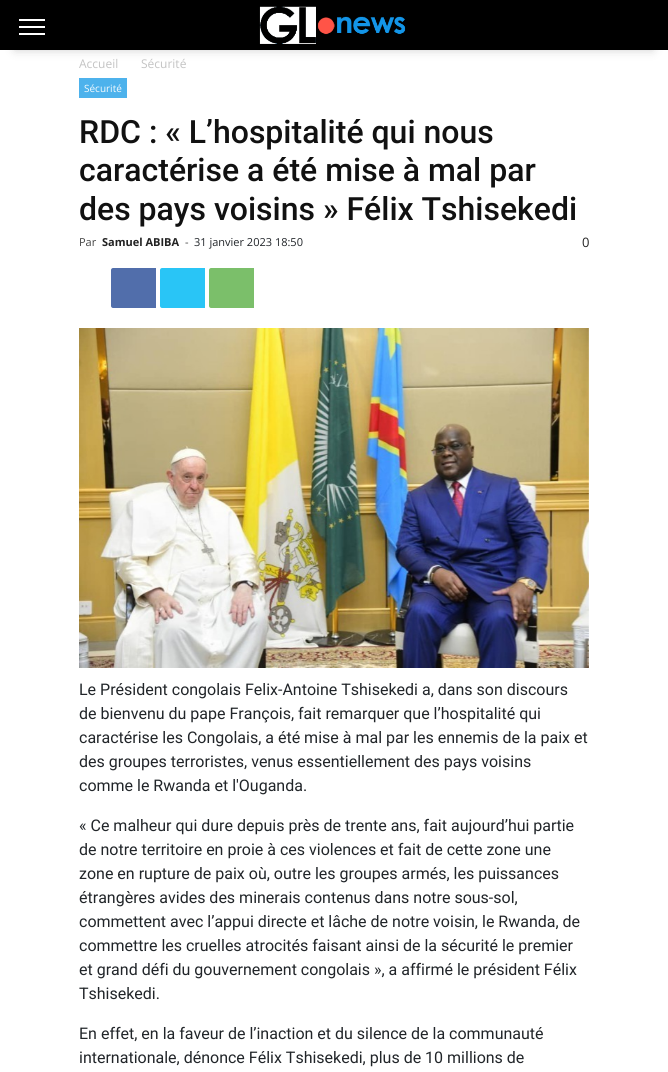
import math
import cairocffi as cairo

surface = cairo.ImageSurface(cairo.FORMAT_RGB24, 668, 1072)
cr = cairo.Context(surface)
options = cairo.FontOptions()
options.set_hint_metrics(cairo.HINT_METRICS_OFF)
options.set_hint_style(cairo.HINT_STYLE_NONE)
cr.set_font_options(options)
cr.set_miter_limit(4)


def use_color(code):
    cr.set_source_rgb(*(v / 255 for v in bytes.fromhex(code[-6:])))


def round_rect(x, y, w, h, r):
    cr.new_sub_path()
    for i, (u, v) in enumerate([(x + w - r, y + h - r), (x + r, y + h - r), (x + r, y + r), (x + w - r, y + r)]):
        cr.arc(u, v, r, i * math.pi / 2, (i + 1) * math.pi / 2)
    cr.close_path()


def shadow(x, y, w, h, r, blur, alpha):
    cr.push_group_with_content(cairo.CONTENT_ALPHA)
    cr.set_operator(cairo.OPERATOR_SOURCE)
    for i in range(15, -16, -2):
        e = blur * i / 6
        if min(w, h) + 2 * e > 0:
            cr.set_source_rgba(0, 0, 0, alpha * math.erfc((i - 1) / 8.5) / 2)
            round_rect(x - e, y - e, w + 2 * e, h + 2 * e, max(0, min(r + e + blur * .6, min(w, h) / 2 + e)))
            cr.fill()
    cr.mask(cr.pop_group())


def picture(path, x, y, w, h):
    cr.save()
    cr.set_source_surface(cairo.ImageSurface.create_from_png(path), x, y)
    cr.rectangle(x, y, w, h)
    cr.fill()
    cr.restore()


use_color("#ffffff")
cr.paint()
use_color("#121212")
shadow(15, 30, 638, 20, 0, 5, 0.2)
use_color("#000000")
cr.rectangle(0, 0, 668, 50)
cr.fill()
use_color("#ffffff")
cr.rectangle(19, 33, 26, 2)
cr.fill()
cr.rectangle(19, 26, 26, 2)
cr.fill()
cr.rectangle(19, 19, 26, 2)
cr.fill()
picture("img1.png", 259, 6, 147, 38)
cr.select_font_face("Open Sans")
cr.set_font_size(12)
use_color("#c3c3c3")
cr.move_to(79, 68)
cr.show_text("Accueil")
cr.move_to(141, 68)
cr.show_text("Sécurité")
use_color("#4db2ec")
cr.rectangle(79, 78, 48, 20)
cr.fill()
cr.set_font_size(10)
use_color("#f6fbfe")
cr.move_to(84, 92)
cr.show_text("Sécurité")
cr.select_font_face("Roboto Medium")
cr.set_font_size(32)
use_color("#111111")
cr.move_to(79, 143)
cr.show_text("RDC : « L’hospitalité qui nous")
cr.move_to(79, 181)
cr.show_text("caractérise a été mise à mal par")
cr.move_to(79, 220)
cr.show_text("des pays voisins » Félix Tshisekedi")
cr.select_font_face("Open Sans")
cr.set_font_size(11)
use_color("#444444")
cr.move_to(79, 246)
cr.show_text("Par")
cr.select_font_face("Open Sans", cairo.FONT_SLANT_NORMAL, cairo.FONT_WEIGHT_BOLD)
use_color("#222222")
cr.move_to(102, 246)
cr.show_text("Samuel ABIBA")
cr.select_font_face("Open Sans")
use_color("#444444")
cr.move_to(185, 246)
cr.show_text("-")
use_color("#212529")
cr.move_to(194, 246)
cr.show_text("31 janvier 2023 18:50")
cr.set_font_size(13)
use_color("#222222")
cr.move_to(582, 247)
cr.show_text("0")
use_color("#516eab")
cr.new_path()
cr.move_to(113, 268)
cr.line_to(156, 268)
cr.line_to(156, 308)
cr.line_to(113, 308)
cr.curve_to(112, 308, 111, 307, 111, 306)
cr.line_to(111, 270)
cr.curve_to(111, 269, 112, 268, 113, 268)
cr.close_path()
cr.fill()
use_color("#29c5f6")
cr.new_path()
cr.move_to(162, 268)
cr.line_to(205, 268)
cr.line_to(205, 308)
cr.line_to(162, 308)
cr.curve_to(161, 308, 160, 307, 160, 306)
cr.line_to(160, 270)
cr.curve_to(160, 269, 161, 268, 162, 268)
cr.close_path()
cr.fill()
use_color("#7bbf6a")
cr.new_path()
cr.move_to(211, 268)
cr.line_to(254, 268)
cr.line_to(254, 308)
cr.line_to(211, 308)
cr.curve_to(210, 308, 209, 307, 209, 306)
cr.line_to(209, 270)
cr.curve_to(209, 269, 210, 268, 211, 268)
cr.close_path()
cr.fill()
picture("img2.png", 79, 328, 510, 340)
cr.select_font_face("Roboto")
cr.set_font_size(16)
use_color("#212529")
cr.move_to(79, 695)
cr.show_text("Le Président congolais Felix-Antoine Tshisekedi a, dans son discours")
cr.move_to(79, 719)
cr.show_text("de bienvenu du pape François, fait remarquer que l’hospitalité qui")
cr.move_to(79, 743)
cr.show_text("caractérise les Congolais, a été mise à mal par les ennemis de la paix et")
cr.move_to(79, 767)
cr.show_text("des groupes terroristes, venus essentiellement des pays voisins")
cr.move_to(79, 791)
cr.show_text("comme le Rwanda et l'Ouganda.")
cr.move_to(79, 831)
cr.show_text("« Ce malheur qui dure depuis près de trente ans, fait aujourd’hui partie")
cr.move_to(79, 855)
cr.show_text("de notre territoire en proie à ces violences et fait de cette zone une")
cr.move_to(79, 879)
cr.show_text("zone en rupture de paix où, outre les groupes armés, les puissances")
cr.move_to(79, 903)
cr.show_text("étrangères avides des minerais contenus dans notre sous-sol,")
cr.move_to(79, 927)
cr.show_text("commettent avec l’appui directe et lâche de notre voisin, le Rwanda, de")
cr.move_to(79, 951)
cr.show_text("commettre les cruelles atrocités faisant ainsi de la sécurité le premier")
cr.move_to(79, 975)
cr.show_text("et grand défi du gouvernement congolais », a affirmé le président Félix")
cr.move_to(79, 999)
cr.show_text("Tshisekedi.")
cr.move_to(79, 1039)
cr.show_text("En effet, en la faveur de l’inaction et du silence de la communauté")
cr.move_to(79, 1063)
cr.show_text("internationale, dénonce Félix Tshisekedi, plus de 10 millions de")
surface.write_to_png("result.png")
